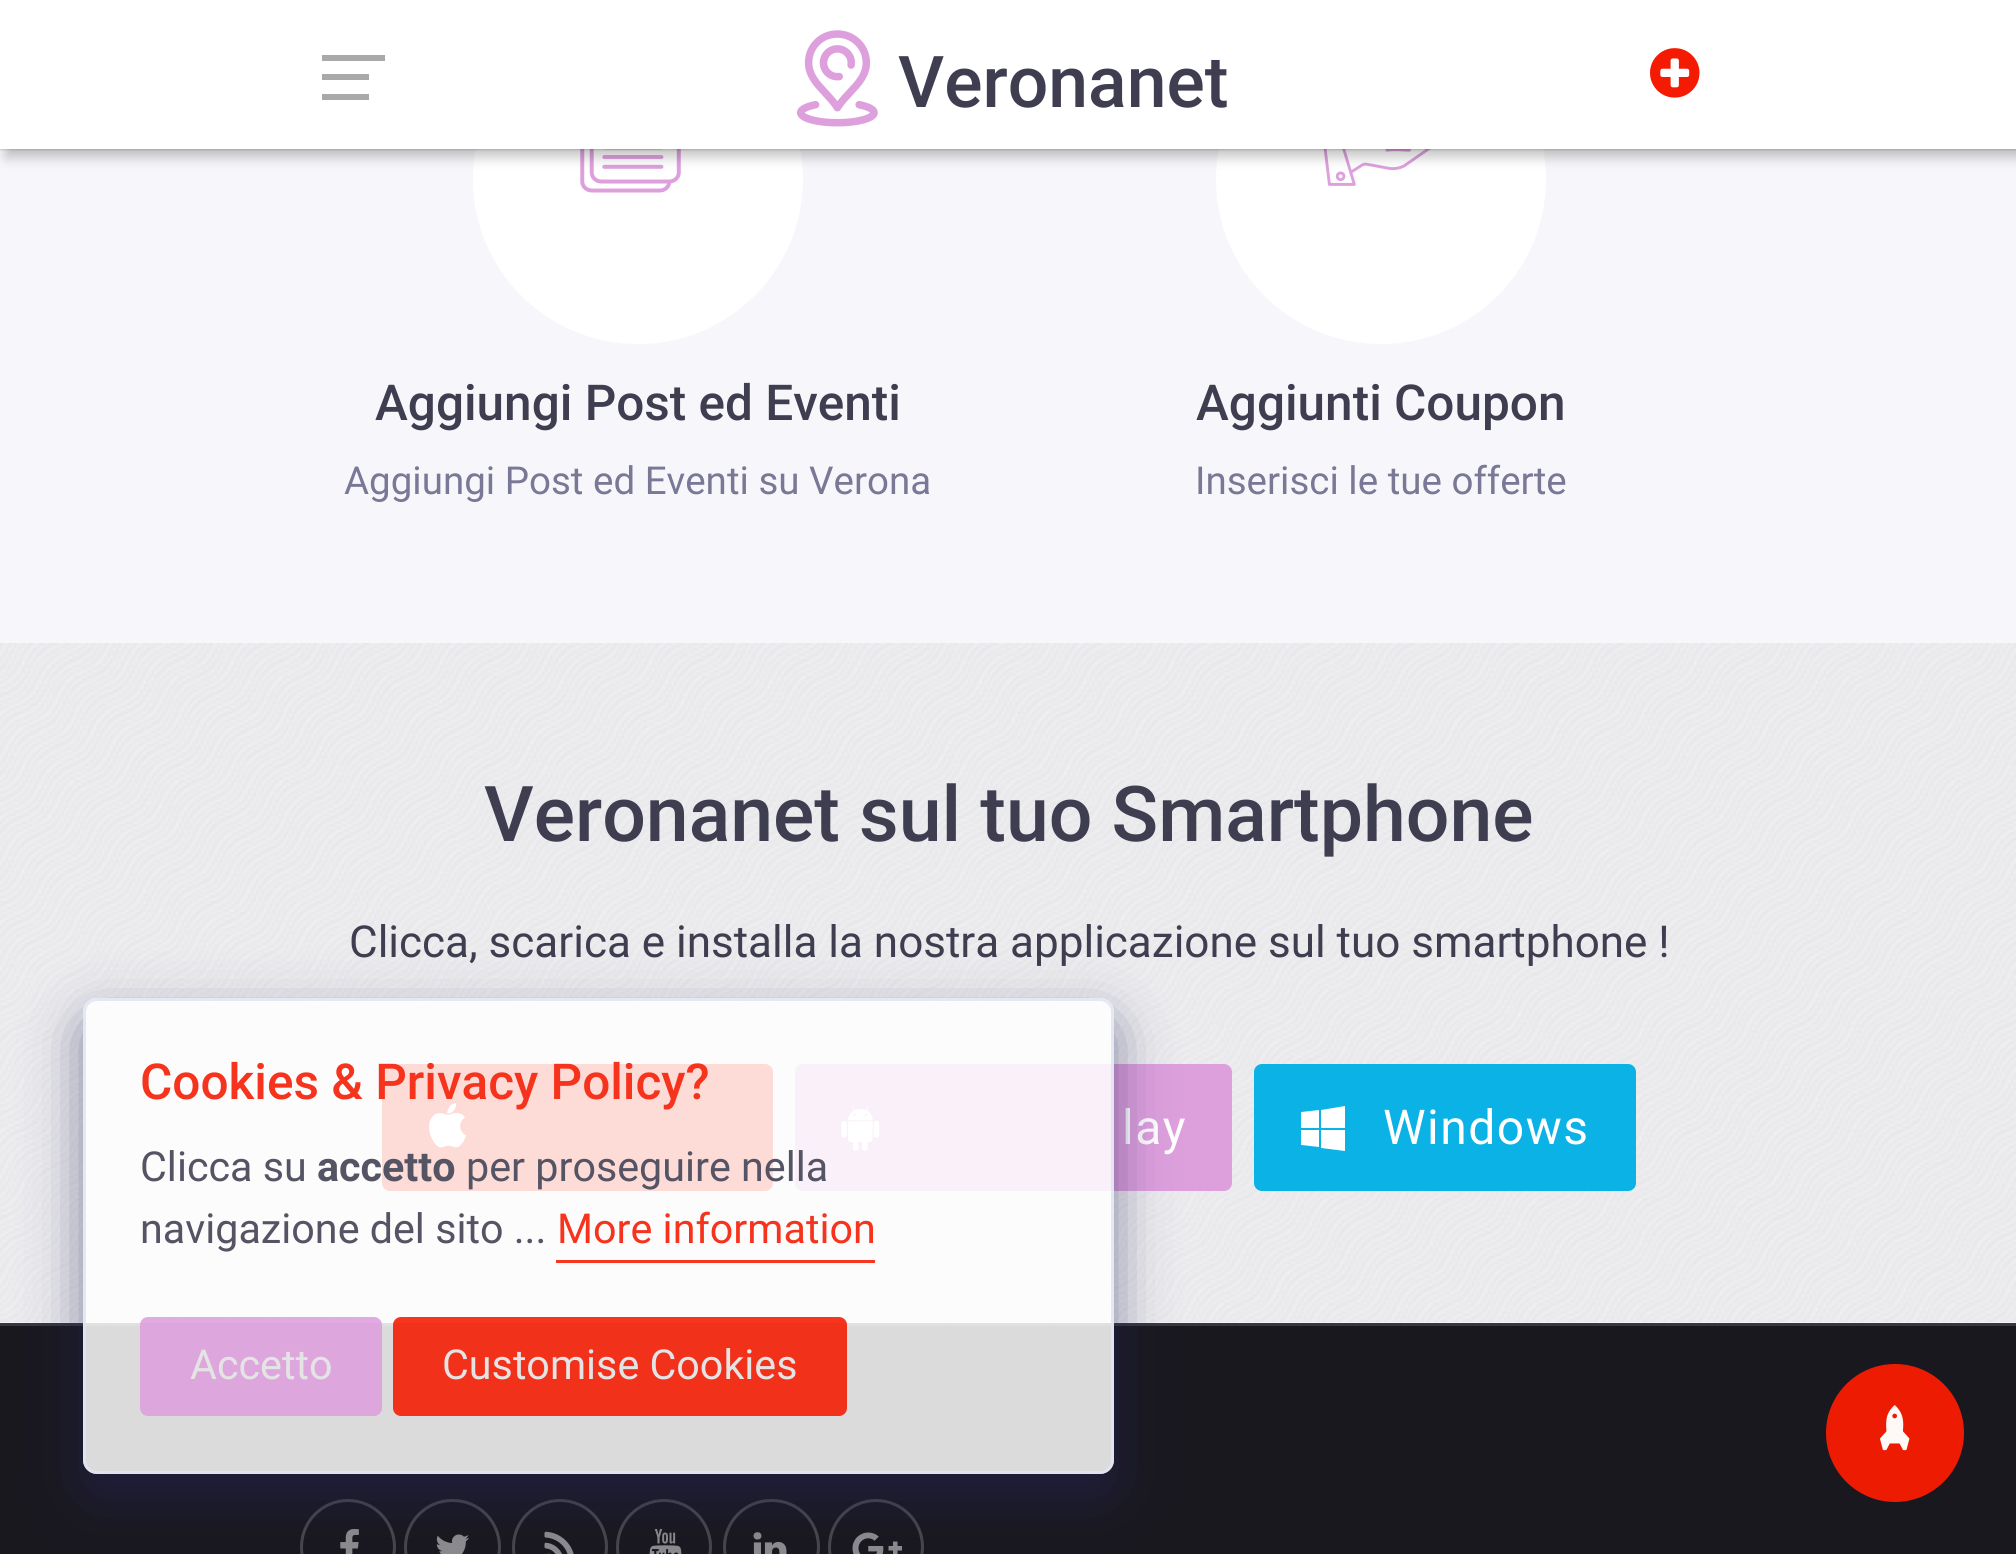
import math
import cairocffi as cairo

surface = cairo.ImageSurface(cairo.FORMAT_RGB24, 2016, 1554)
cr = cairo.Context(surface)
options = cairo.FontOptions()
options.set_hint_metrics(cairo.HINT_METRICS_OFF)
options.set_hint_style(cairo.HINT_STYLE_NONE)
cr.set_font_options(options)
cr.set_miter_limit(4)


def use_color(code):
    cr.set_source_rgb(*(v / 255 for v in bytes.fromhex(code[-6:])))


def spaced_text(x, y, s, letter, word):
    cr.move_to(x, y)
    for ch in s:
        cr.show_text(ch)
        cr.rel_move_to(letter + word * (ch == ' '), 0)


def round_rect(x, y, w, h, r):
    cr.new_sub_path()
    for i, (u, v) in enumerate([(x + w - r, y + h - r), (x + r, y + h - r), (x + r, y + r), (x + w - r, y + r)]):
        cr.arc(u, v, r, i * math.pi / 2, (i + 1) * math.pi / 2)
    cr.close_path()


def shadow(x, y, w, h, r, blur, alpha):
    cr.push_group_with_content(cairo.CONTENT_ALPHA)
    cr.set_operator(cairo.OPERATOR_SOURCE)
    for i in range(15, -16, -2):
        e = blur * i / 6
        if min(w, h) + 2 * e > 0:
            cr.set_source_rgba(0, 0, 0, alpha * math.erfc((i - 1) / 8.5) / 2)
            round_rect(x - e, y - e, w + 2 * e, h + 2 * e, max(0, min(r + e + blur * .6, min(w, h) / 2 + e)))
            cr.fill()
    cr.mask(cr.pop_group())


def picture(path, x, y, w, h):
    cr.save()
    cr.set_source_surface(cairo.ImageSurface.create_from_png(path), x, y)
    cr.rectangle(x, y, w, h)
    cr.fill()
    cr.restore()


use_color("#f7f7fb")
cr.paint()
use_color("#ffffff")
cr.arc(638, 179, 165, 0, 2 * math.pi)
cr.fill()
picture("img3.png", 580, 149, 101, 44)
cr.arc(1381, 179, 165, 0, 2 * math.pi)
cr.fill()
picture("img4.png", 1323, 149, 108, 37)
use_color("#000000")
shadow(6, 8, 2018, 149, 0, 6.5, 0.24)
shadow(0, 0, 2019, 149, 0, 1.5, 0.3)
use_color("#ffffff")
cr.rectangle(0, 0, 2016, 149)
cr.fill()
use_color("#a9a9a9")
cr.rectangle(322, 74, 47, 6)
cr.fill()
cr.rectangle(322, 55, 63, 6)
cr.fill()
cr.rectangle(322, 94, 47, 6)
cr.fill()
picture("img1.png", 797, 30, 81, 97)
cr.select_font_face("Roboto Medium")
cr.set_font_size(71.5)
use_color("#3f3e50")
cr.move_to(898, 107)
cr.show_text("Veronanet")
picture("img2.png", 1650, 48, 50, 50)
cr.set_font_size(49.5)
cr.move_to(375, 420)
cr.show_text("Aggiungi Post ed Eventi")
cr.select_font_face("Roboto")
cr.set_font_size(38.5)
use_color("#797896")
cr.move_to(344, 494)
cr.show_text("Aggiungi Post ed Eventi su Verona")
cr.select_font_face("Roboto Medium")
cr.set_font_size(49.5)
use_color("#3f3e50")
cr.move_to(1196, 420)
cr.show_text("Aggiunti Coupon")
cr.select_font_face("Roboto")
cr.set_font_size(38.5)
use_color("#797896")
cr.move_to(1195, 494)
cr.show_text("Inserisci le tue offerte")
picture("img5.png", 0, 643, 2016, 680)
cr.select_font_face("Roboto Medium")
cr.set_font_size(77)
use_color("#3f3e50")
cr.move_to(484, 841)
cr.show_text("Veronanet sul tuo Smartphone")
cr.select_font_face("Roboto")
cr.set_font_size(44)
cr.move_to(349, 957)
cr.show_text("Clicca, scarica e installa la nostra applicazione sul tuo smartphone !")
use_color("#f51b02")
round_rect(383.5, 1065.5, 388, 124, 6.5)
cr.fill_preserve()
cr.set_line_width(3)
cr.stroke()
picture("img6.png", 429, 1103, 38, 45)
use_color("#dda0dd")
round_rect(796.5, 1065.5, 434, 124, 6.5)
cr.fill_preserve()
cr.stroke()
picture("img7.png", 841, 1106, 39, 45)
cr.set_font_size(48)
use_color("#ffffff")
spaced_text(1122, 1144, "lay", 1.5, 0)
use_color("#0ab2e6")
round_rect(1255.5, 1065.5, 379, 124, 6.5)
cr.fill_preserve()
cr.stroke()
use_color("#ffffff")
cr.new_path()
cr.move_to(1319, 1130)
cr.line_to(1319, 1147)
cr.line_to(1301, 1145)
cr.line_to(1301, 1130)
cr.close_path()
cr.move_to(1319, 1110)
cr.line_to(1319, 1128)
cr.line_to(1301, 1128)
cr.line_to(1301, 1112)
cr.close_path()
cr.move_to(1345, 1130)
cr.line_to(1345, 1151)
cr.line_to(1321, 1148)
cr.line_to(1321, 1130)
cr.close_path()
cr.move_to(1345, 1106)
cr.line_to(1345, 1128)
cr.line_to(1321, 1128)
cr.line_to(1321, 1110)
cr.close_path()
cr.fill()
spaced_text(1383, 1144, "Windows", 1.5, 0)
use_color("#19181f")
cr.rectangle(0, 1326, 2016, 228)
cr.fill()
use_color("#353741")
cr.rectangle(0, 1323, 2016, 3)
cr.fill()
cr.arc(348, 1547, 46.5, 0, 2 * math.pi)
use_color("#47464c")
cr.stroke()
picture("img8.png", 340, 1529, 19, 25)
round_rect(405.5, 1500.5, 94, 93, 46.5)
cr.stroke()
picture("img9.png", 436, 1534, 33, 20)
cr.arc(560, 1547, 46.5, 0, 2 * math.pi)
cr.stroke()
picture("img10.png", 544, 1531, 30, 23)
cr.arc(664, 1547, 46.5, 0, 2 * math.pi)
cr.stroke()
picture("img11.png", 649, 1529, 33, 25)
round_rect(724.5, 1500.5, 94, 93, 46.5)
cr.stroke()
picture("img12.png", 753, 1532, 34, 22)
cr.arc(876, 1547, 46.5, 0, 2 * math.pi)
cr.stroke()
picture("img13.png", 852, 1532, 50, 22)
cr.save()
cr.set_fill_rule(cairo.FILL_RULE_EVEN_ODD)
cr.new_path()
cr.move_to(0, 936)
cr.line_to(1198, 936)
cr.line_to(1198, 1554)
cr.line_to(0, 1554)
cr.close_path()
cr.move_to(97, 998)
cr.line_to(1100, 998)
cr.curve_to(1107.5, 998, 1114, 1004.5, 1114, 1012)
cr.line_to(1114, 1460)
cr.curve_to(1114, 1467.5, 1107.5, 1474, 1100, 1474)
cr.line_to(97, 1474)
cr.curve_to(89.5, 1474, 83, 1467.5, 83, 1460)
cr.line_to(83, 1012)
cr.curve_to(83, 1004.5, 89.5, 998, 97, 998)
cr.close_path()
cr.clip()
use_color("#282559")
shadow(83, 1020, 1031, 476, 14, 27.5, 0.53)
cr.restore()
cr.set_source_rgba(1, 1, 1, 0.84)
round_rect(83, 998, 1031, 476, 14)
cr.fill()
round_rect(84.5, 999.5, 1028, 473, 12.5)
cr.set_source_rgba(0.878, 0.898, 0.953, 0.88)
cr.stroke()
cr.select_font_face("Roboto Medium")
cr.set_font_size(49.5)
use_color("#f6331d")
cr.move_to(140, 1099)
cr.show_text("Cookies & Privacy Policy?")
cr.select_font_face("Roboto")
cr.set_font_size(41.25)
use_color("#555464")
cr.move_to(140, 1181)
cr.show_text("Clicca su")
cr.select_font_face("Roboto", cairo.FONT_SLANT_NORMAL, cairo.FONT_WEIGHT_BOLD)
cr.move_to(317, 1181)
cr.show_text("accetto")
cr.select_font_face("Roboto")
cr.move_to(466, 1181)
cr.show_text("per proseguire nella")
cr.move_to(140, 1243)
cr.show_text("navigazione del sito ...")
use_color("#f6331d")
cr.move_to(557, 1243)
cr.show_text("More information")
use_color("#f63620")
cr.rectangle(556, 1260, 319, 3)
cr.fill()
cr.set_source_rgba(0.867, 0.627, 0.867, 0.88)
round_rect(140, 1317, 242, 99, 8)
cr.fill()
use_color("#e4e4e5")
cr.move_to(190, 1379)
cr.show_text("Accetto")
cr.set_source_rgba(0.961, 0.106, 0.008, 0.88)
round_rect(393, 1317, 454, 99, 8)
cr.fill()
use_color("#e4e4e5")
cr.move_to(442, 1379)
cr.show_text("Customise Cookies")
use_color("#ee1b03")
cr.new_path()
cr.arc(1895, 1433, 69, 0, 2 * math.pi)
cr.fill()
picture("img14.png", 1880, 1405, 30, 46)
surface.write_to_png("result.png")
